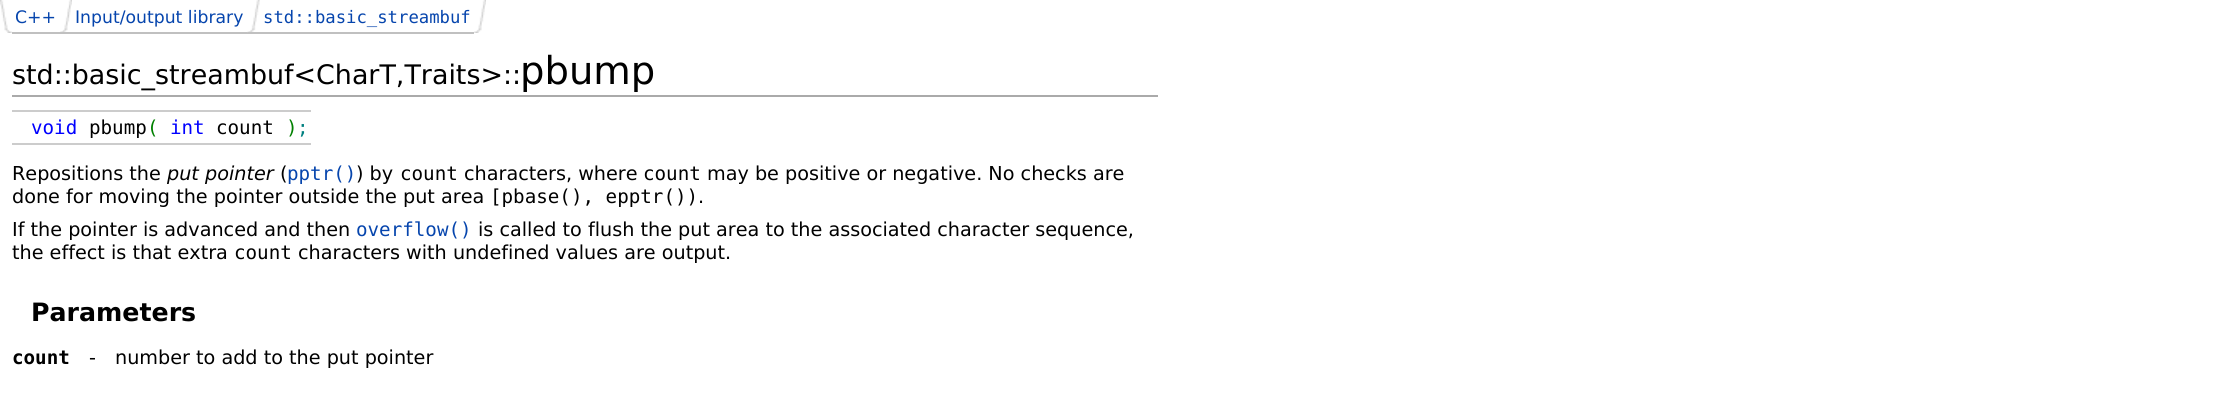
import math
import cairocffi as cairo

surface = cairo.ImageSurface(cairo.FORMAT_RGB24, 2231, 394)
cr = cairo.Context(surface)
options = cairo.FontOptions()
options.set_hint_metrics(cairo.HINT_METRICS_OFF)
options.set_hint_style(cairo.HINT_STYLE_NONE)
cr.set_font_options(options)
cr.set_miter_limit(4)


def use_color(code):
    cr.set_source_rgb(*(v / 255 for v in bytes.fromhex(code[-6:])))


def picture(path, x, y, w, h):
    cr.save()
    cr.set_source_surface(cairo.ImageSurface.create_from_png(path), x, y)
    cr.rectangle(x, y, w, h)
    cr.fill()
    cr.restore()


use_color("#ffffff")
cr.paint()
picture("img1.png", 0, 0, 12, 33)
picture("img2.png", 60, 0, 12, 32)
cr.select_font_face("DejaVu Sans")
cr.set_font_size(17.25)
use_color("#0645ad")
cr.move_to(75, 23)
cr.show_text("Input/output library")
use_color("#c0c0c0")
cr.rectangle(12, 32, 236, 2)
cr.fill()
picture("img3.png", 247, 0, 13, 33)
cr.rectangle(248, 32, 226, 2)
cr.fill()
picture("img4.png", 474, 0, 12, 33)
use_color("#0645ad")
cr.move_to(15, 23)
cr.show_text("C++")
cr.select_font_face("DejaVu Sans Mono")
cr.move_to(263, 23)
cr.show_text("std::basic_streambuf")
use_color("#cccccc")
cr.rectangle(12, 110, 299, 2)
cr.fill()
cr.set_font_size(19.2)
use_color("#0000ff")
cr.move_to(31, 134)
cr.show_text("void")
use_color("#000000")
cr.move_to(89, 134)
cr.show_text("pbump")
use_color("#008000")
cr.move_to(147, 134)
cr.show_text("(")
use_color("#0000ff")
cr.move_to(170, 134)
cr.show_text("int")
use_color("#000000")
cr.move_to(216, 134)
cr.show_text("count")
use_color("#008000")
cr.move_to(286, 134)
cr.show_text(")")
use_color("#008080")
cr.move_to(297, 134)
cr.show_text(";")
use_color("#cccccc")
cr.rectangle(12, 143, 299, 2)
cr.fill()
cr.select_font_face("DejaVu Sans")
use_color("#000000")
cr.move_to(12, 180)
cr.show_text("Repositions the")
cr.select_font_face("DejaVu Sans", cairo.FONT_SLANT_ITALIC)
cr.move_to(167, 180)
cr.show_text("put pointer")
cr.select_font_face("DejaVu Sans")
cr.move_to(280, 180)
cr.show_text("(")
cr.select_font_face("DejaVu Sans Mono")
use_color("#0645ad")
cr.move_to(287, 180)
cr.show_text("pptr()")
cr.select_font_face("DejaVu Sans")
use_color("#000000")
cr.move_to(356, 180)
cr.show_text(") by")
cr.select_font_face("DejaVu Sans Mono")
cr.move_to(400, 180)
cr.show_text("count")
cr.select_font_face("DejaVu Sans")
cr.move_to(464, 180)
cr.show_text("characters, where")
cr.select_font_face("DejaVu Sans Mono")
cr.move_to(643, 180)
cr.show_text("count")
cr.select_font_face("DejaVu Sans")
cr.move_to(707, 180)
cr.show_text("may be positive or negative. No checks are")
cr.move_to(12, 203)
cr.show_text("done for moving the pointer outside the put area")
cr.select_font_face("DejaVu Sans Mono")
cr.move_to(490, 203)
cr.show_text("[pbase(), epptr())")
cr.select_font_face("DejaVu Sans")
cr.move_to(698, 203)
cr.show_text(".")
cr.move_to(12, 236)
cr.show_text("If the pointer is advanced and then")
cr.select_font_face("DejaVu Sans Mono")
use_color("#0645ad")
cr.move_to(356, 236)
cr.show_text("overflow()")
cr.select_font_face("DejaVu Sans")
use_color("#000000")
cr.move_to(478, 236)
cr.show_text("is called to flush the put area to the associated character sequence,")
cr.move_to(12, 259)
cr.show_text("the effect is that extra")
cr.select_font_face("DejaVu Sans Mono")
cr.move_to(234, 259)
cr.show_text("count")
cr.select_font_face("DejaVu Sans")
cr.move_to(298, 259)
cr.show_text("characters with undefined values are output.")
cr.select_font_face("DejaVu Sans", cairo.FONT_SLANT_NORMAL, cairo.FONT_WEIGHT_BOLD)
cr.set_font_size(25.25)
cr.move_to(31, 321)
cr.show_text("Parameters")
cr.select_font_face("DejaVu Sans Mono", cairo.FONT_SLANT_NORMAL, cairo.FONT_WEIGHT_BOLD)
cr.set_font_size(19.2)
cr.move_to(12, 364)
cr.show_text("count")
cr.select_font_face("DejaVu Sans")
cr.move_to(89, 364)
cr.show_text("-")
cr.move_to(115, 364)
cr.show_text("number to add to the put pointer")
use_color("#aaaaaa")
cr.rectangle(12, 95, 1146, 2)
cr.fill()
cr.set_font_size(26.9)
use_color("#000000")
cr.move_to(12, 84)
cr.show_text("std::basic_streambuf<CharT,Traits>::")
cr.set_font_size(38.5)
cr.move_to(520, 84)
cr.show_text("pbump")
surface.write_to_png("result.png")
